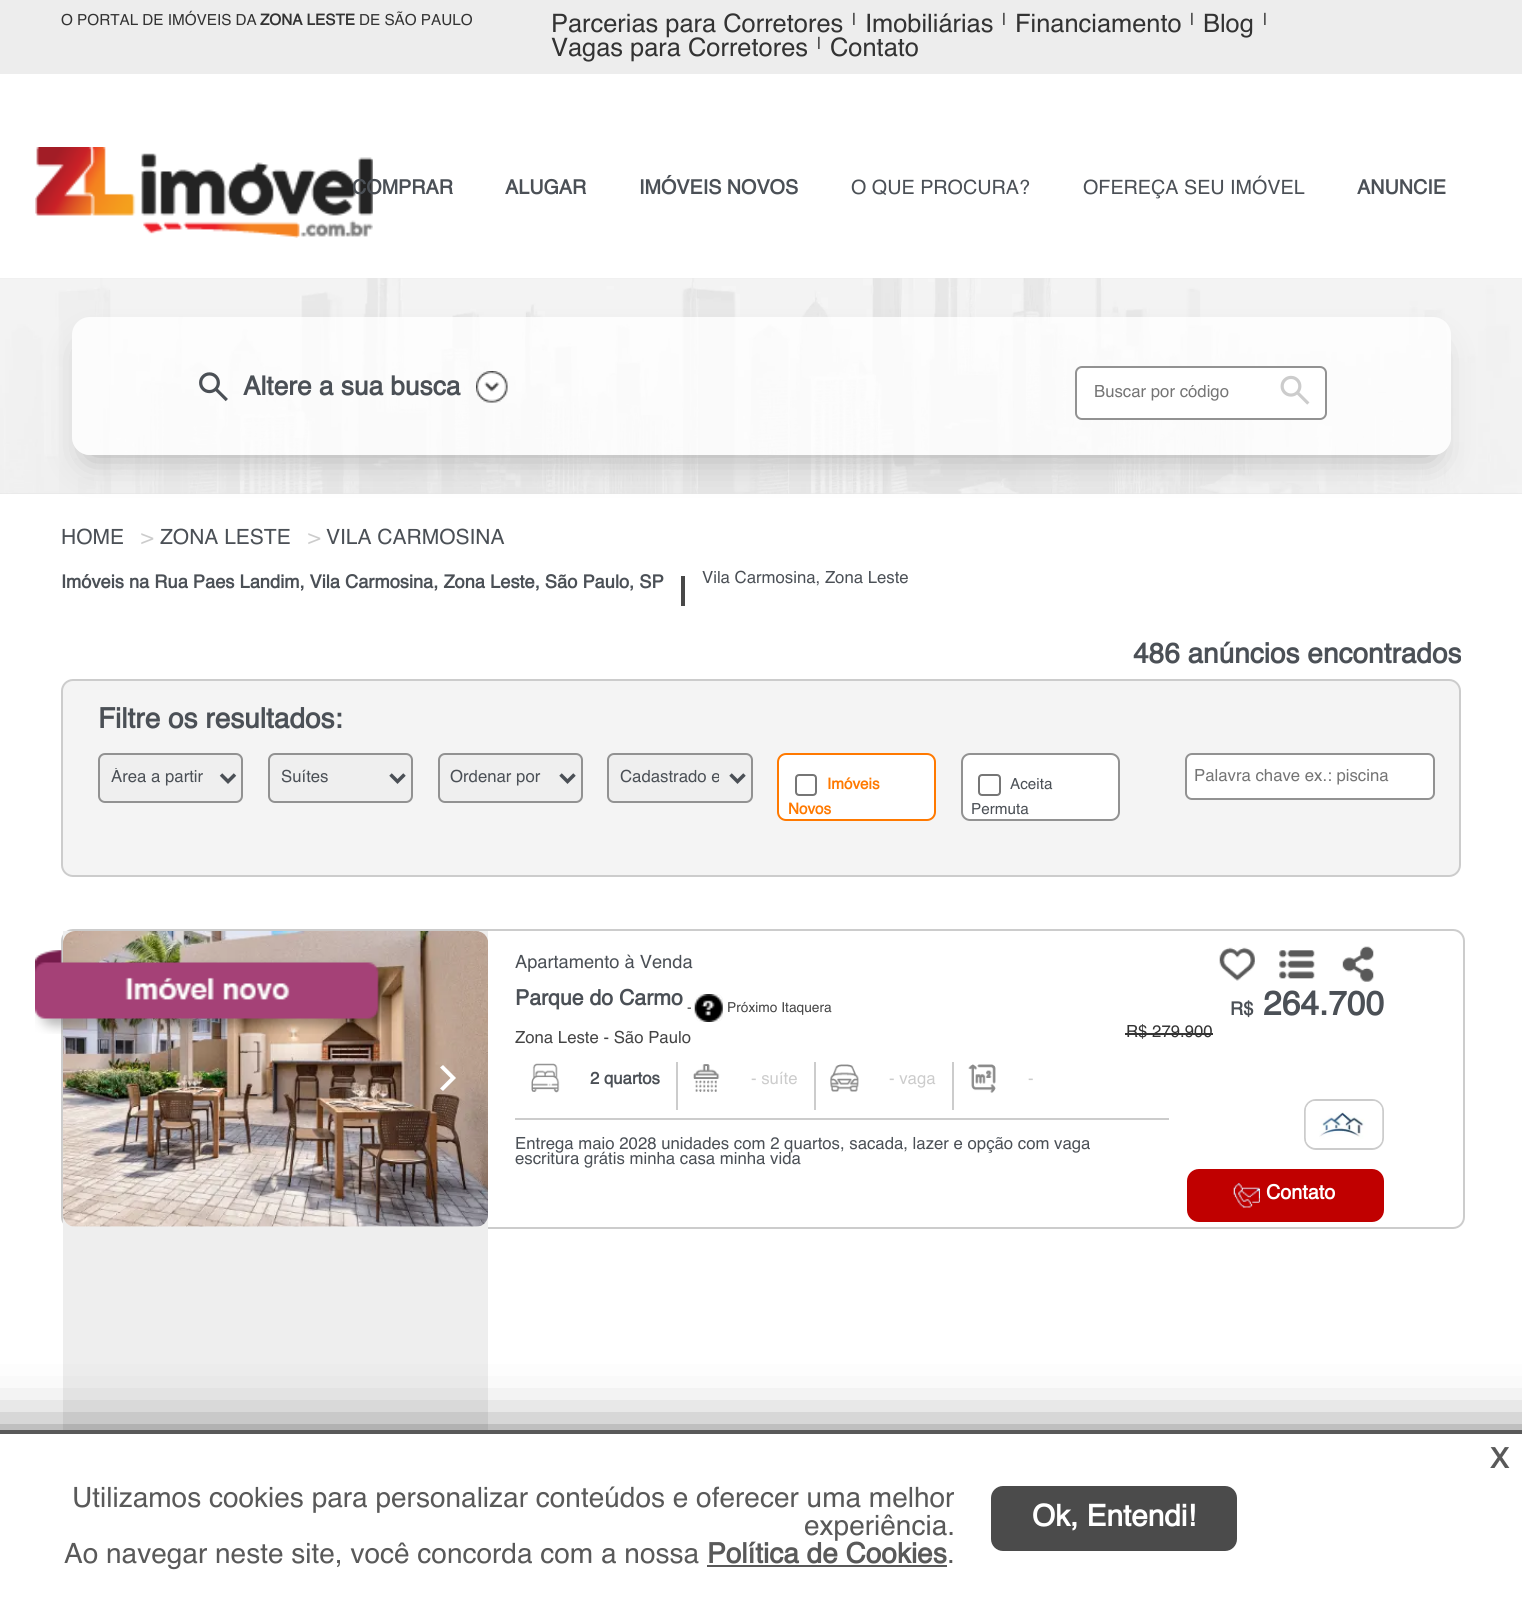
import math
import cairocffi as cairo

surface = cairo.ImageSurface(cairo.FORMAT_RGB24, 1522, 1621)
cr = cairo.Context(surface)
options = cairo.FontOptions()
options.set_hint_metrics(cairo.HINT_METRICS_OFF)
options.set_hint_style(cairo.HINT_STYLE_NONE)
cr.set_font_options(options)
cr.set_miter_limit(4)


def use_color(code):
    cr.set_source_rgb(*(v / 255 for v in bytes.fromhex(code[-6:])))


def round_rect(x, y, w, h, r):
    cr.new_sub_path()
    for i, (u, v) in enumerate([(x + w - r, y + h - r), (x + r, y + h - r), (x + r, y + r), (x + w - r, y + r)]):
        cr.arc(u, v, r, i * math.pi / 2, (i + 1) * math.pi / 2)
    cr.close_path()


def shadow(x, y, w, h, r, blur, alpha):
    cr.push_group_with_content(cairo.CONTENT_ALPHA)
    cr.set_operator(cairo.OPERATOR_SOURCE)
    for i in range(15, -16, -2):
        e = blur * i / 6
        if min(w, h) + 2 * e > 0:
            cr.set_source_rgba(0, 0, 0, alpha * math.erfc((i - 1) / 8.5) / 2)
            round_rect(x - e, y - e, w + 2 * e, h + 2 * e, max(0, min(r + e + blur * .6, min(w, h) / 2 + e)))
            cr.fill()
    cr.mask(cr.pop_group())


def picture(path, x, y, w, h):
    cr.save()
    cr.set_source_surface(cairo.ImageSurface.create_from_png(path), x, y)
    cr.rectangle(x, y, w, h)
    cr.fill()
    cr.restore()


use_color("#ffffff")
cr.paint()
use_color("#ededed")
cr.rectangle(0, 0, 1522, 74)
cr.fill()
cr.select_font_face("Helvetica")
cr.set_font_size(15.25)
use_color("#333333")
cr.move_to(61, 25)
cr.show_text("O PORTAL DE IMÓVEIS DA")
cr.select_font_face("Helvetica", cairo.FONT_SLANT_NORMAL, cairo.FONT_WEIGHT_BOLD)
cr.move_to(260, 25)
cr.show_text("ZONA LESTE")
cr.select_font_face("Helvetica")
cr.move_to(359, 25)
cr.show_text("DE SÃO PAULO")
cr.set_font_size(25.4)
cr.move_to(551, 32)
cr.show_text("Parcerias para Corretores")
cr.set_font_size(16.75)
cr.move_to(852, 25)
cr.show_text("|")
cr.set_font_size(25.4)
cr.move_to(865, 32)
cr.show_text("Imobiliárias")
cr.set_font_size(16.75)
cr.move_to(1002, 25)
cr.show_text("|")
cr.set_font_size(25.4)
cr.move_to(1015, 32)
cr.show_text("Financiamento")
cr.set_font_size(16.75)
cr.move_to(1190, 25)
cr.show_text("|")
cr.set_font_size(25.4)
cr.move_to(1203, 32)
cr.show_text("Blog")
cr.set_font_size(16.75)
cr.move_to(1263, 25)
cr.show_text("|")
cr.set_font_size(25.4)
cr.move_to(551, 56)
cr.show_text("Vagas para Corretores")
cr.set_font_size(16.75)
cr.move_to(817, 49)
cr.show_text("|")
cr.set_font_size(25.4)
cr.move_to(830, 56)
cr.show_text("Contato")
picture("img1.png", 35, 147, 338, 91)
cr.select_font_face("Helvetica", cairo.FONT_SLANT_NORMAL, cairo.FONT_WEIGHT_BOLD)
cr.set_font_size(19.75)
use_color("#4b5056")
cr.move_to(352, 194)
cr.show_text("COMPRAR")
cr.move_to(505, 194)
cr.show_text("ALUGAR")
cr.move_to(639, 194)
cr.show_text("IMÓVEIS NOVOS")
cr.select_font_face("Helvetica")
cr.move_to(851, 194)
cr.show_text("O QUE PROCURA?")
cr.move_to(1083, 194)
cr.show_text("OFEREÇA SEU IMÓVEL")
cr.select_font_face("Helvetica", cairo.FONT_SLANT_NORMAL, cairo.FONT_WEIGHT_BOLD)
cr.move_to(1357, 194)
cr.show_text("ANUNCIE")
use_color("#e5e5e5")
cr.rectangle(0, 278, 1522, 216)
cr.fill()
picture("img2.png", 0, 278, 1522, 216)
cr.save()
cr.set_fill_rule(cairo.FILL_RULE_EVEN_ODD)
cr.new_path()
cr.move_to(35, 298)
cr.line_to(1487, 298)
cr.line_to(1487, 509)
cr.line_to(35, 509)
cr.close_path()
cr.move_to(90, 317)
cr.line_to(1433, 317)
cr.curve_to(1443, 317, 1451, 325, 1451, 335)
cr.line_to(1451, 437)
cr.curve_to(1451, 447, 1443, 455, 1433, 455)
cr.line_to(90, 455)
cr.curve_to(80, 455, 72, 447, 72, 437)
cr.line_to(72, 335)
cr.curve_to(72, 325, 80, 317, 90, 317)
cr.close_path()
cr.clip()
use_color("#aaaaaa")
shadow(89, 352, 1344, 103, 0, 17.5, 1)
cr.restore()
cr.set_source_rgba(1, 1, 1, 0.8)
round_rect(72, 317, 1379, 138, 18)
cr.fill()
picture("img3.png", 199, 372, 29, 30)
cr.set_font_size(26.25)
use_color("#4b5056")
cr.move_to(243, 395)
cr.show_text("Altere a sua busca")
picture("img4.png", 476, 371, 32, 32)
use_color("#ffffff")
round_rect(1076, 367, 250, 52, 6)
cr.fill_preserve()
use_color("#929292")
cr.stroke()
cr.save()
cr.rectangle(1094, 385, 187, 16)
cr.clip()
cr.select_font_face("Helvetica")
cr.set_font_size(16.75)
use_color("#757575")
cr.move_to(1094, 397)
cr.show_text("Buscar por código")
cr.restore()
picture("img5.png", 1280, 375, 30, 30)
cr.select_font_face("Helvetica")
cr.set_font_size(21)
use_color("#4b5056")
cr.move_to(61, 544)
cr.show_text("HOME")
use_color("#cccccc")
cr.move_to(141, 544)
cr.show_text(">")
use_color("#4b5056")
cr.move_to(160, 544)
cr.show_text("ZONA LESTE")
use_color("#cccccc")
cr.move_to(308, 544)
cr.show_text(">")
use_color("#4b5056")
cr.move_to(326, 544)
cr.show_text("VILA CARMOSINA")
cr.select_font_face("Helvetica", cairo.FONT_SLANT_NORMAL, cairo.FONT_WEIGHT_BOLD)
cr.set_font_size(18.25)
cr.move_to(61, 588)
cr.show_text("Imóveis na Rua Paes Landim, Vila Carmosina, Zona Leste, São Paulo, SP")
use_color("#484848")
cr.rectangle(681, 576, 4, 30)
cr.fill()
cr.select_font_face("Helvetica")
cr.set_font_size(16.75)
use_color("#4b5056")
cr.move_to(702, 583)
cr.show_text("Vila Carmosina, Zona Leste")
cr.select_font_face("Helvetica", cairo.FONT_SLANT_NORMAL, cairo.FONT_WEIGHT_BOLD)
cr.set_font_size(28)
cr.move_to(1133, 663)
cr.show_text("486 anúncios encontrados")
use_color("#f4f4f4")
round_rect(62, 680, 1398, 196, 11)
cr.fill_preserve()
use_color("#cccccc")
cr.stroke()
use_color("#4b5056")
cr.move_to(98, 728)
cr.show_text("Filtre os resultados:")
use_color("#efefef")
round_rect(99, 754, 143, 48, 6)
cr.fill_preserve()
use_color("#929292")
cr.stroke()
cr.new_path()
cr.move_to(221, 774.5)
cr.line_to(228, 781.5)
cr.line_to(235, 774.5)
use_color("#4b5056")
cr.set_line_width(3.5)
cr.stroke()
cr.save()
cr.rectangle(110, 768, 100, 20)
cr.clip()
cr.select_font_face("Helvetica")
cr.set_font_size(16.75)
cr.move_to(111, 782)
cr.show_text("Área a partir")
cr.restore()
use_color("#efefef")
round_rect(269, 754, 143, 48, 6)
cr.fill_preserve()
use_color("#929292")
cr.set_line_width(2)
cr.stroke()
cr.new_path()
cr.move_to(390.5, 774.5)
cr.line_to(397.5, 781.5)
cr.line_to(404.5, 774.5)
use_color("#4b5056")
cr.set_line_width(3.5)
cr.stroke()
cr.select_font_face("Helvetica")
cr.set_font_size(16.75)
cr.move_to(281, 782)
cr.show_text("Suítes")
use_color("#efefef")
round_rect(439, 754, 143, 48, 6)
cr.fill_preserve()
use_color("#929292")
cr.set_line_width(2)
cr.stroke()
cr.new_path()
cr.move_to(560.5, 774.5)
cr.line_to(567.5, 781.5)
cr.line_to(574.5, 774.5)
use_color("#4b5056")
cr.set_line_width(3.5)
cr.stroke()
cr.move_to(450, 782)
cr.show_text("Ordenar por")
use_color("#efefef")
round_rect(608, 754, 144, 48, 6)
cr.fill_preserve()
use_color("#929292")
cr.set_line_width(2)
cr.stroke()
cr.new_path()
cr.move_to(730.5, 774.5)
cr.line_to(737.5, 781.5)
cr.line_to(744.5, 774.5)
use_color("#4b5056")
cr.set_line_width(3.5)
cr.stroke()
cr.save()
cr.rectangle(620, 768, 99, 20)
cr.clip()
cr.move_to(620, 782)
cr.show_text("Cadastrado e")
cr.restore()
use_color("#ffffff")
round_rect(778, 754, 157, 66, 8)
cr.fill_preserve()
use_color("#ff7900")
cr.set_line_width(2)
cr.stroke()
round_rect(796, 775, 20, 20, 3)
use_color("#767676")
cr.stroke()
cr.select_font_face("Helvetica", cairo.FONT_SLANT_NORMAL, cairo.FONT_WEIGHT_BOLD)
cr.set_font_size(15.25)
use_color("#ff7900")
cr.move_to(827, 789)
cr.show_text("Imóveis")
cr.move_to(788, 814)
cr.show_text("Novos")
use_color("#ffffff")
round_rect(962, 754, 157, 66, 8)
cr.fill_preserve()
use_color("#929292")
cr.stroke()
round_rect(979, 775, 21, 20, 3)
use_color("#767676")
cr.stroke()
cr.select_font_face("Helvetica")
use_color("#4b5056")
cr.move_to(1010, 789)
cr.show_text("Aceita")
cr.move_to(971, 814)
cr.show_text("Permuta")
use_color("#ffffff")
round_rect(1186, 754, 248, 45, 6)
cr.fill_preserve()
use_color("#929292")
cr.stroke()
cr.set_font_size(16.75)
use_color("#757575")
cr.move_to(1194, 781)
cr.show_text("Palavra chave ex.: piscina")
round_rect(62, 930, 1402, 298, 11)
use_color("#cccccc")
cr.stroke()
use_color("#eeeeee")
cr.rectangle(63, 931, 425, 499)
cr.fill()
picture("img6.png", 63, 931, 425, 296)
use_color("#ffffff")
cr.new_path()
cr.move_to(456, 1078)
cr.line_to(443, 1065)
cr.line_to(440, 1067.5)
cr.line_to(450.5, 1078)
cr.line_to(440, 1088.5)
cr.line_to(443, 1091)
cr.close_path()
cr.fill()
picture("img7.png", 35, 950, 358, 84)
cr.set_font_size(18.25)
use_color("#4b5056")
cr.move_to(515, 968)
cr.show_text("Apartamento à Venda")
cr.select_font_face("Helvetica", cairo.FONT_SLANT_NORMAL, cairo.FONT_WEIGHT_BOLD)
cr.set_font_size(21.25)
cr.move_to(515, 1005)
cr.show_text("Parque do Carmo")
cr.select_font_face("Helvetica")
cr.set_font_size(13.75)
use_color("#444444")
cr.move_to(687, 1012)
cr.show_text("-")
use_color("#efefef")
round_rect(695, 994, 28, 28, 7)
cr.fill()
picture("img8.png", 694, 994, 29, 28)
use_color("#444444")
cr.move_to(727, 1012)
cr.show_text("Próximo Itaquera")
picture("img9.png", 1219, 947, 36, 34)
picture("img10.png", 1279, 950, 36, 29)
picture("img11.png", 1342, 946, 32, 36)
cr.select_font_face("Helvetica", cairo.FONT_SLANT_NORMAL, cairo.FONT_WEIGHT_BOLD)
cr.set_font_size(18.25)
use_color("#4b5056")
cr.move_to(1230, 1015)
cr.show_text("R$")
cr.set_font_size(33.5)
cr.move_to(1263, 1015)
cr.show_text("264.700")
cr.select_font_face("Helvetica")
cr.set_font_size(16.75)
use_color("#333333")
cr.move_to(1126, 1037)
cr.show_text("R$ 279.900")
cr.rectangle(1125, 1033, 88, 2)
cr.fill()
round_rect(1305, 1100, 78, 49, 11)
use_color("#cccccc")
cr.stroke()
picture("img12.png", 1305, 1101, 78, 47)
use_color("#c00000")
round_rect(1187, 1169, 197, 53, 12)
cr.fill()
picture("img13.png", 1233, 1183, 27, 25)
cr.select_font_face("Helvetica", cairo.FONT_SLANT_NORMAL, cairo.FONT_WEIGHT_BOLD)
cr.set_font_size(19.75)
use_color("#ffffff")
cr.move_to(1266, 1199)
cr.show_text("Contato")
cr.select_font_face("Helvetica")
cr.set_font_size(16.75)
use_color("#444444")
cr.move_to(515, 1043)
cr.show_text("Zona Leste - São Paulo")
use_color("#cccccc")
cr.rectangle(515, 1118, 654, 2)
cr.fill()
cr.rectangle(676, 1062, 2, 48)
cr.fill()
picture("img14.png", 531, 1063, 29, 30)
cr.select_font_face("Helvetica", cairo.FONT_SLANT_NORMAL, cairo.FONT_WEIGHT_BOLD)
use_color("#4b5056")
cr.move_to(590, 1084)
cr.show_text("2 quartos")
use_color("#cccccc")
cr.rectangle(814, 1062, 2, 48)
cr.fill()
picture("img15.png", 693, 1064, 27, 28)
cr.select_font_face("Helvetica")
cr.move_to(751, 1084)
cr.show_text("- suíte")
cr.rectangle(952, 1062, 2, 48)
cr.fill()
picture("img16.png", 830, 1064, 29, 28)
cr.move_to(889, 1084)
cr.show_text("- vaga")
picture("img17.png", 968, 1064, 28, 29)
cr.move_to(1028, 1084)
cr.show_text("-")
use_color("#4b5056")
cr.move_to(515, 1149)
cr.show_text("Entrega maio 2028 unidades com 2 quartos, sacada, lazer e opção com vaga")
cr.move_to(515, 1164)
cr.show_text("escritura grátis minha casa minha vida")
use_color("#000000")
shadow(-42, 1454, 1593, 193, 0, 36, 1)
use_color("#ffffff")
cr.rectangle(0, 1434, 1522, 187)
cr.fill()
use_color("#595959")
cr.rectangle(0, 1430, 1522, 4)
cr.fill()
cr.select_font_face("Helvetica", cairo.FONT_SLANT_NORMAL, cairo.FONT_WEIGHT_BOLD)
cr.set_font_size(28)
cr.move_to(1490, 1468)
cr.show_text("X")
cr.select_font_face("Helvetica")
cr.move_to(72, 1507)
cr.show_text("Utilizamos cookies para personalizar conteúdos e oferecer uma melhor")
cr.move_to(804, 1535)
cr.show_text("experiência.")
cr.move_to(64, 1563)
cr.show_text("Ao navegar neste site, você concorda com a nossa")
cr.select_font_face("Helvetica", cairo.FONT_SLANT_NORMAL, cairo.FONT_WEIGHT_BOLD)
cr.move_to(707, 1563)
cr.show_text("Política de Cookies")
cr.rectangle(707, 1565, 240, 2)
cr.fill()
cr.select_font_face("Helvetica")
cr.move_to(947, 1563)
cr.show_text(".")
use_color("#4b4b4b")
round_rect(991, 1486, 246, 65, 12)
cr.fill()
cr.select_font_face("Helvetica", cairo.FONT_SLANT_NORMAL, cairo.FONT_WEIGHT_BOLD)
cr.set_font_size(29.75)
use_color("#ffffff")
cr.move_to(1032, 1526)
cr.show_text("Ok, Entendi!")
surface.write_to_png("result.png")
